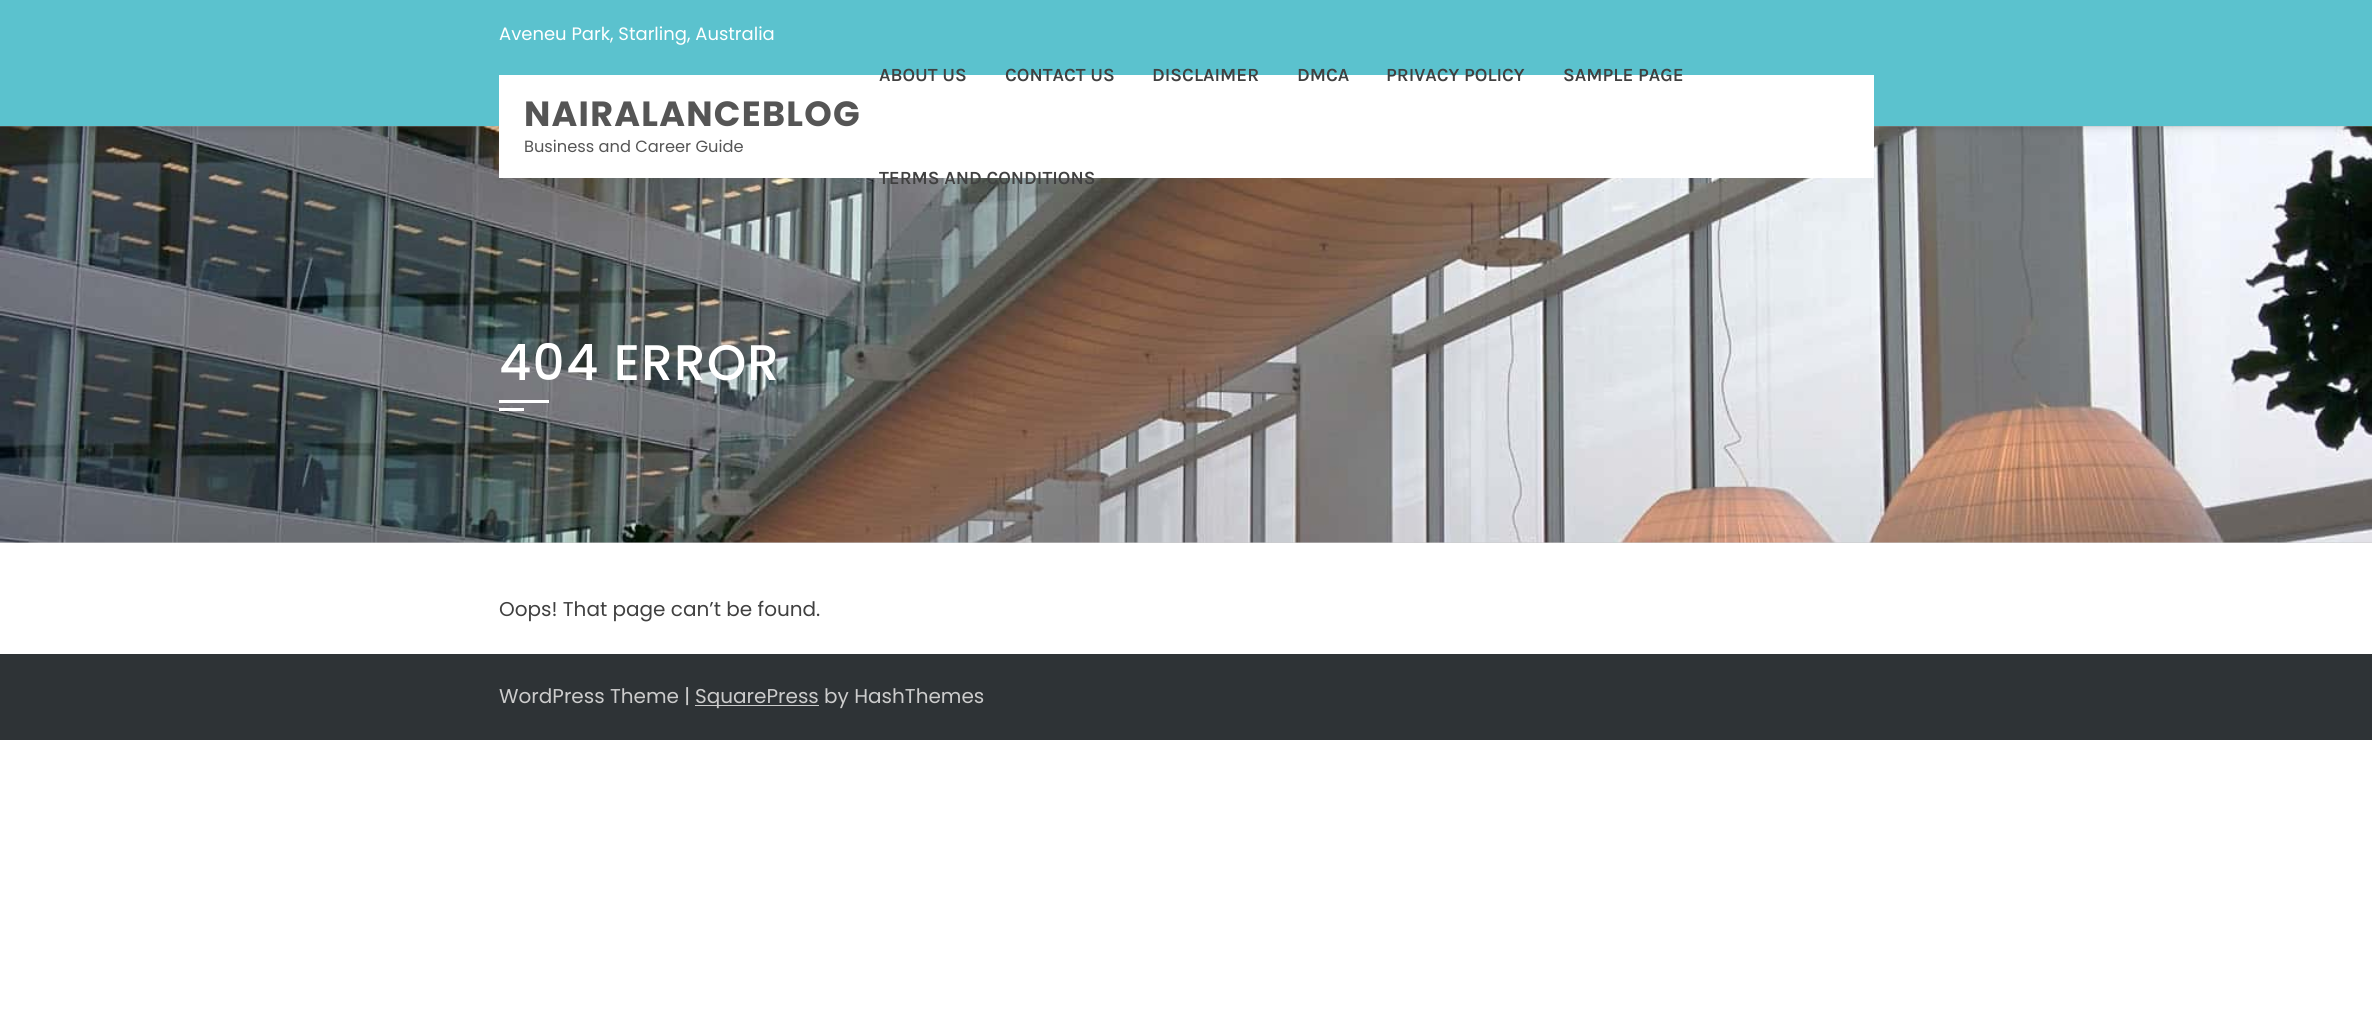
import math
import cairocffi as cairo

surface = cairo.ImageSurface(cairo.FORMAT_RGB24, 2372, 1019)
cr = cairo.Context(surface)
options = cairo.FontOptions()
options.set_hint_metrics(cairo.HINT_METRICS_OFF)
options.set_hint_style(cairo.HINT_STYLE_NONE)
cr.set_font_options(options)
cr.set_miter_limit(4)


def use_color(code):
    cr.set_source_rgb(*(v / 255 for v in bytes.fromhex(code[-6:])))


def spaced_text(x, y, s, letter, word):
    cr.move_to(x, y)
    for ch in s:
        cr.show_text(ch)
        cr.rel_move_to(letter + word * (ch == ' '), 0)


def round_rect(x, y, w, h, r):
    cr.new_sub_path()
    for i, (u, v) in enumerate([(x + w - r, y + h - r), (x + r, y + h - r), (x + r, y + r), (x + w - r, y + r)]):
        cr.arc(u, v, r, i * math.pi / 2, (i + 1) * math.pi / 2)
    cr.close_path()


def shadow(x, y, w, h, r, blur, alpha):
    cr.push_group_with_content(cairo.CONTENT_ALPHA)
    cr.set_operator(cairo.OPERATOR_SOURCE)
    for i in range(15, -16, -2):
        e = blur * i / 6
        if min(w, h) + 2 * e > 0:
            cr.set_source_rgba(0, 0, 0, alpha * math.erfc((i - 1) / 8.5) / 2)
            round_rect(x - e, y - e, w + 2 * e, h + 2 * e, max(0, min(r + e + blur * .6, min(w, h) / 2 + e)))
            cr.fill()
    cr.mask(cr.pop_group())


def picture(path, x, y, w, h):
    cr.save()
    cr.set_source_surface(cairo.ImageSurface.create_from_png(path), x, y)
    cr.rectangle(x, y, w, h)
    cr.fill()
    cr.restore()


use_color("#ffffff")
cr.paint()
use_color("#cccccc")
cr.rectangle(0, 126, 2372, 417)
cr.fill()
picture("img1.png", 0, 126, 2372, 417)
use_color("#000000")
shadow(0, 0, 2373, 126, 0, 5, 0.2)
use_color("#5bc2ce")
cr.rectangle(0, 0, 2372, 126)
cr.fill()
cr.select_font_face("Poppins")
cr.set_font_size(18)
use_color("#ffffff")
cr.move_to(499, 40)
cr.show_text("Aveneu Park, Starling, Australia")
cr.rectangle(499, 75, 1375, 103)
cr.fill()
cr.select_font_face("Poppins", cairo.FONT_SLANT_NORMAL, cairo.FONT_WEIGHT_BOLD)
cr.set_font_size(35)
use_color("#555555")
spaced_text(524, 126, "NAIRALANCEBLOG", 1.25, 0)
cr.select_font_face("Poppins")
cr.set_font_size(16.25)
cr.move_to(524, 152)
cr.show_text("Business and Career Guide")
cr.select_font_face("Karla SemiBold")
cr.set_font_size(18.75)
use_color("#404040")
cr.move_to(879, 81)
cr.show_text("ABOUT US")
cr.move_to(1005, 81)
cr.show_text("CONTACT US")
cr.move_to(1152, 81)
cr.show_text("DISCLAIMER")
cr.move_to(1297, 81)
cr.show_text("DMCA")
cr.move_to(1386, 81)
cr.show_text("PRIVACY POLICY")
cr.move_to(1563, 81)
cr.show_text("SAMPLE PAGE")
cr.move_to(879, 184)
cr.show_text("TERMS AND CONDITIONS")
cr.select_font_face("Poppins Medium")
cr.set_font_size(50)
use_color("#ffffff")
spaced_text(499, 380, "404 ERROR", 1.25, 0)
cr.rectangle(499, 400, 50, 3)
cr.fill()
cr.rectangle(499, 408, 25, 3)
cr.fill()
cr.select_font_face("Poppins")
cr.set_font_size(20)
use_color("#404040")
cr.move_to(499, 616)
cr.show_text("Oops! That page can’t be found.")
use_color("#2e3336")
cr.rectangle(0, 654, 2372, 86)
cr.fill()
use_color("#cccccc")
cr.move_to(499, 703)
cr.show_text("WordPress Theme |")
cr.rectangle(695, 705, 124, 1)
cr.fill()
cr.move_to(695, 703)
cr.show_text("SquarePress by HashThemes")
surface.write_to_png("result.png")
